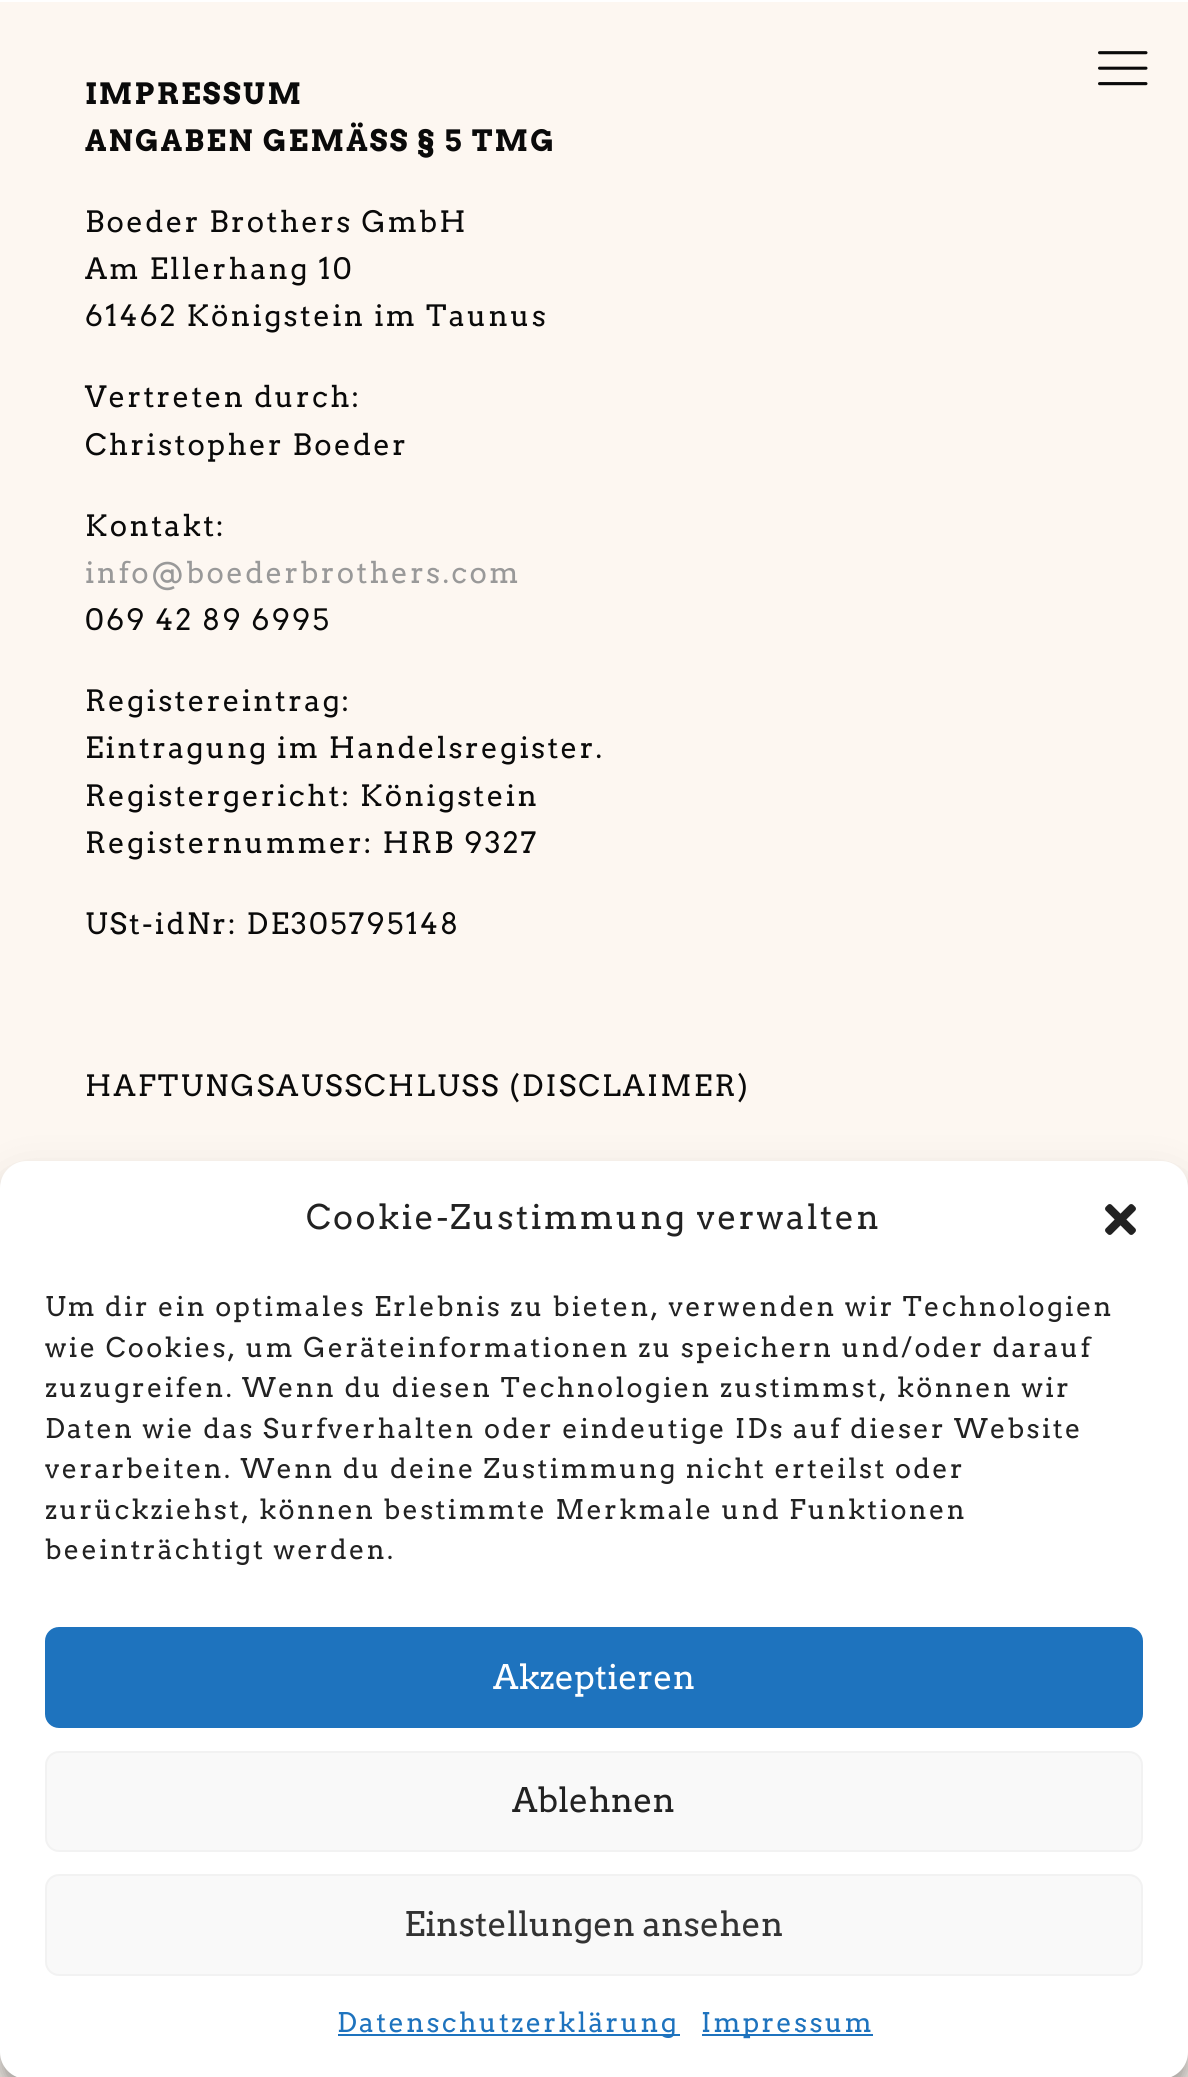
import math
import cairocffi as cairo

surface = cairo.ImageSurface(cairo.FORMAT_RGB24, 1188, 2077)
cr = cairo.Context(surface)
options = cairo.FontOptions()
options.set_hint_metrics(cairo.HINT_METRICS_OFF)
options.set_hint_style(cairo.HINT_STYLE_NONE)
cr.set_font_options(options)
cr.set_miter_limit(4)


def use_color(code):
    cr.set_source_rgb(*(v / 255 for v in bytes.fromhex(code[-6:])))


def spaced_text(x, y, s, letter, word):
    cr.move_to(x, y)
    for ch in s:
        cr.show_text(ch)
        cr.rel_move_to(letter + word * (ch == ' '), 0)


def round_rect(x, y, w, h, r):
    cr.new_sub_path()
    for i, (u, v) in enumerate([(x + w - r, y + h - r), (x + r, y + h - r), (x + r, y + r), (x + w - r, y + r)]):
        cr.arc(u, v, r, i * math.pi / 2, (i + 1) * math.pi / 2)
    cr.close_path()


def shadow(x, y, w, h, r, blur, alpha):
    cr.push_group_with_content(cairo.CONTENT_ALPHA)
    cr.set_operator(cairo.OPERATOR_SOURCE)
    for i in range(15, -16, -2):
        e = blur * i / 6
        if min(w, h) + 2 * e > 0:
            cr.set_source_rgba(0, 0, 0, alpha * math.erfc((i - 1) / 8.5) / 2)
            round_rect(x - e, y - e, w + 2 * e, h + 2 * e, max(0, min(r + e + blur * .6, min(w, h) / 2 + e)))
            cr.fill()
    cr.mask(cr.pop_group())


def picture(path, x, y, w, h):
    cr.save()
    cr.set_source_surface(cairo.ImageSurface.create_from_png(path), x, y)
    cr.rectangle(x, y, w, h)
    cr.fill()
    cr.restore()


use_color("#ffffff")
cr.paint()
use_color("#fdf7f1")
cr.rectangle(0, 2, 1188, 2075)
cr.fill()
picture("img1.png", 1098, 51, 50, 35)
cr.select_font_face("Arvo", cairo.FONT_SLANT_NORMAL, cairo.FONT_WEIGHT_BOLD)
cr.set_font_size(29.25)
use_color("#0a0a0a")
spaced_text(85, 104, "IMPRESSUM", 2.25, 0)
spaced_text(85, 151, "ANGABEN GEMÄSS § 5 TMG", 2.25, 0)
cr.select_font_face("Arvo")
spaced_text(85, 232, "Boeder Brothers GmbH", 2.25, 0)
spaced_text(85, 279, "Am Ellerhang 10", 2.25, 0)
spaced_text(85, 326, "61462 Königstein im Taunus", 2.25, 0)
spaced_text(85, 407, "Vertreten durch:", 2.25, 0)
spaced_text(85, 455, "Christopher Boeder", 2.25, 0)
spaced_text(85, 536, "Kontakt:", 2.25, 0)
use_color("#999999")
spaced_text(85, 583, "info@boederbrothers.com", 2.25, 0)
use_color("#0a0a0a")
spaced_text(85, 630, "069 42 89 6995", 2.25, 0)
spaced_text(85, 711, "Registereintrag:", 2.25, 0)
spaced_text(85, 758, "Eintragung im Handelsregister.", 2.25, 0)
spaced_text(85, 806, "Registergericht: Königstein", 2.25, 0)
spaced_text(85, 853, "Registernummer: HRB 9327", 2.25, 0)
spaced_text(85, 934, "USt-idNr: DE305795148", 2.25, 0)
spaced_text(85, 1096, "HAFTUNGSAUSSCHLUSS (DISCLAIMER)", 2.25, 0)
use_color("#000000")
shadow(0, 1175, 1188, 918, 27, 7, 0.23)
shadow(0, 1184, 1188, 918, 27, 22.5, 0.19)
use_color("#ffffff")
round_rect(0, 1161, 1188, 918, 27)
cr.fill()
cr.set_font_size(33.75)
use_color("#222222")
spaced_text(306, 1229, "Cookie-Zustimmung verwalten", 2.25, 0)
picture("img2.png", 1105, 1204, 31, 31)
cr.set_font_size(27)
spaced_text(45, 1316, "Um dir ein optimales Erlebnis zu bieten, verwenden wir Technologien", 2.25, 0)
spaced_text(45, 1357, "wie Cookies, um Geräteinformationen zu speichern und/oder darauf", 2.25, 0)
spaced_text(45, 1397, "zuzugreifen. Wenn du diesen Technologien zustimmst, können wir", 2.25, 0)
spaced_text(45, 1438, "Daten wie das Surfverhalten oder eindeutige IDs auf dieser Website", 2.25, 0)
spaced_text(45, 1478, "verarbeiten. Wenn du deine Zustimmung nicht erteilst oder", 2.25, 0)
spaced_text(45, 1519, "zurückziehst, können bestimmte Merkmale und Funktionen", 2.25, 0)
spaced_text(45, 1559, "beeinträchtigt werden.", 2.25, 0)
use_color("#1e73be")
round_rect(46, 1628, 1096, 99, 13)
cr.fill_preserve()
cr.stroke()
cr.set_font_size(33.75)
use_color("#ffffff")
cr.move_to(493, 1689)
cr.show_text("Akzeptieren")
use_color("#f9f9f9")
round_rect(46, 1752, 1096, 99, 13)
cr.fill_preserve()
use_color("#f2f2f2")
cr.stroke()
use_color("#222222")
cr.move_to(512, 1812)
cr.show_text("Ablehnen")
use_color("#f9f9f9")
round_rect(46, 1875, 1096, 100, 13)
cr.fill_preserve()
use_color("#f2f2f2")
cr.stroke()
use_color("#333333")
cr.move_to(404, 1936)
cr.show_text("Einstellungen ansehen")
use_color("#1e73be")
cr.rectangle(338, 2034, 342, 2)
cr.fill()
cr.set_font_size(27)
spaced_text(337, 2032, "Datenschutzerklärung", 2.25, 0)
cr.rectangle(702, 2034, 171, 2)
cr.fill()
spaced_text(701, 2032, "Impressum", 2.25, 0)
surface.write_to_png("result.png")
